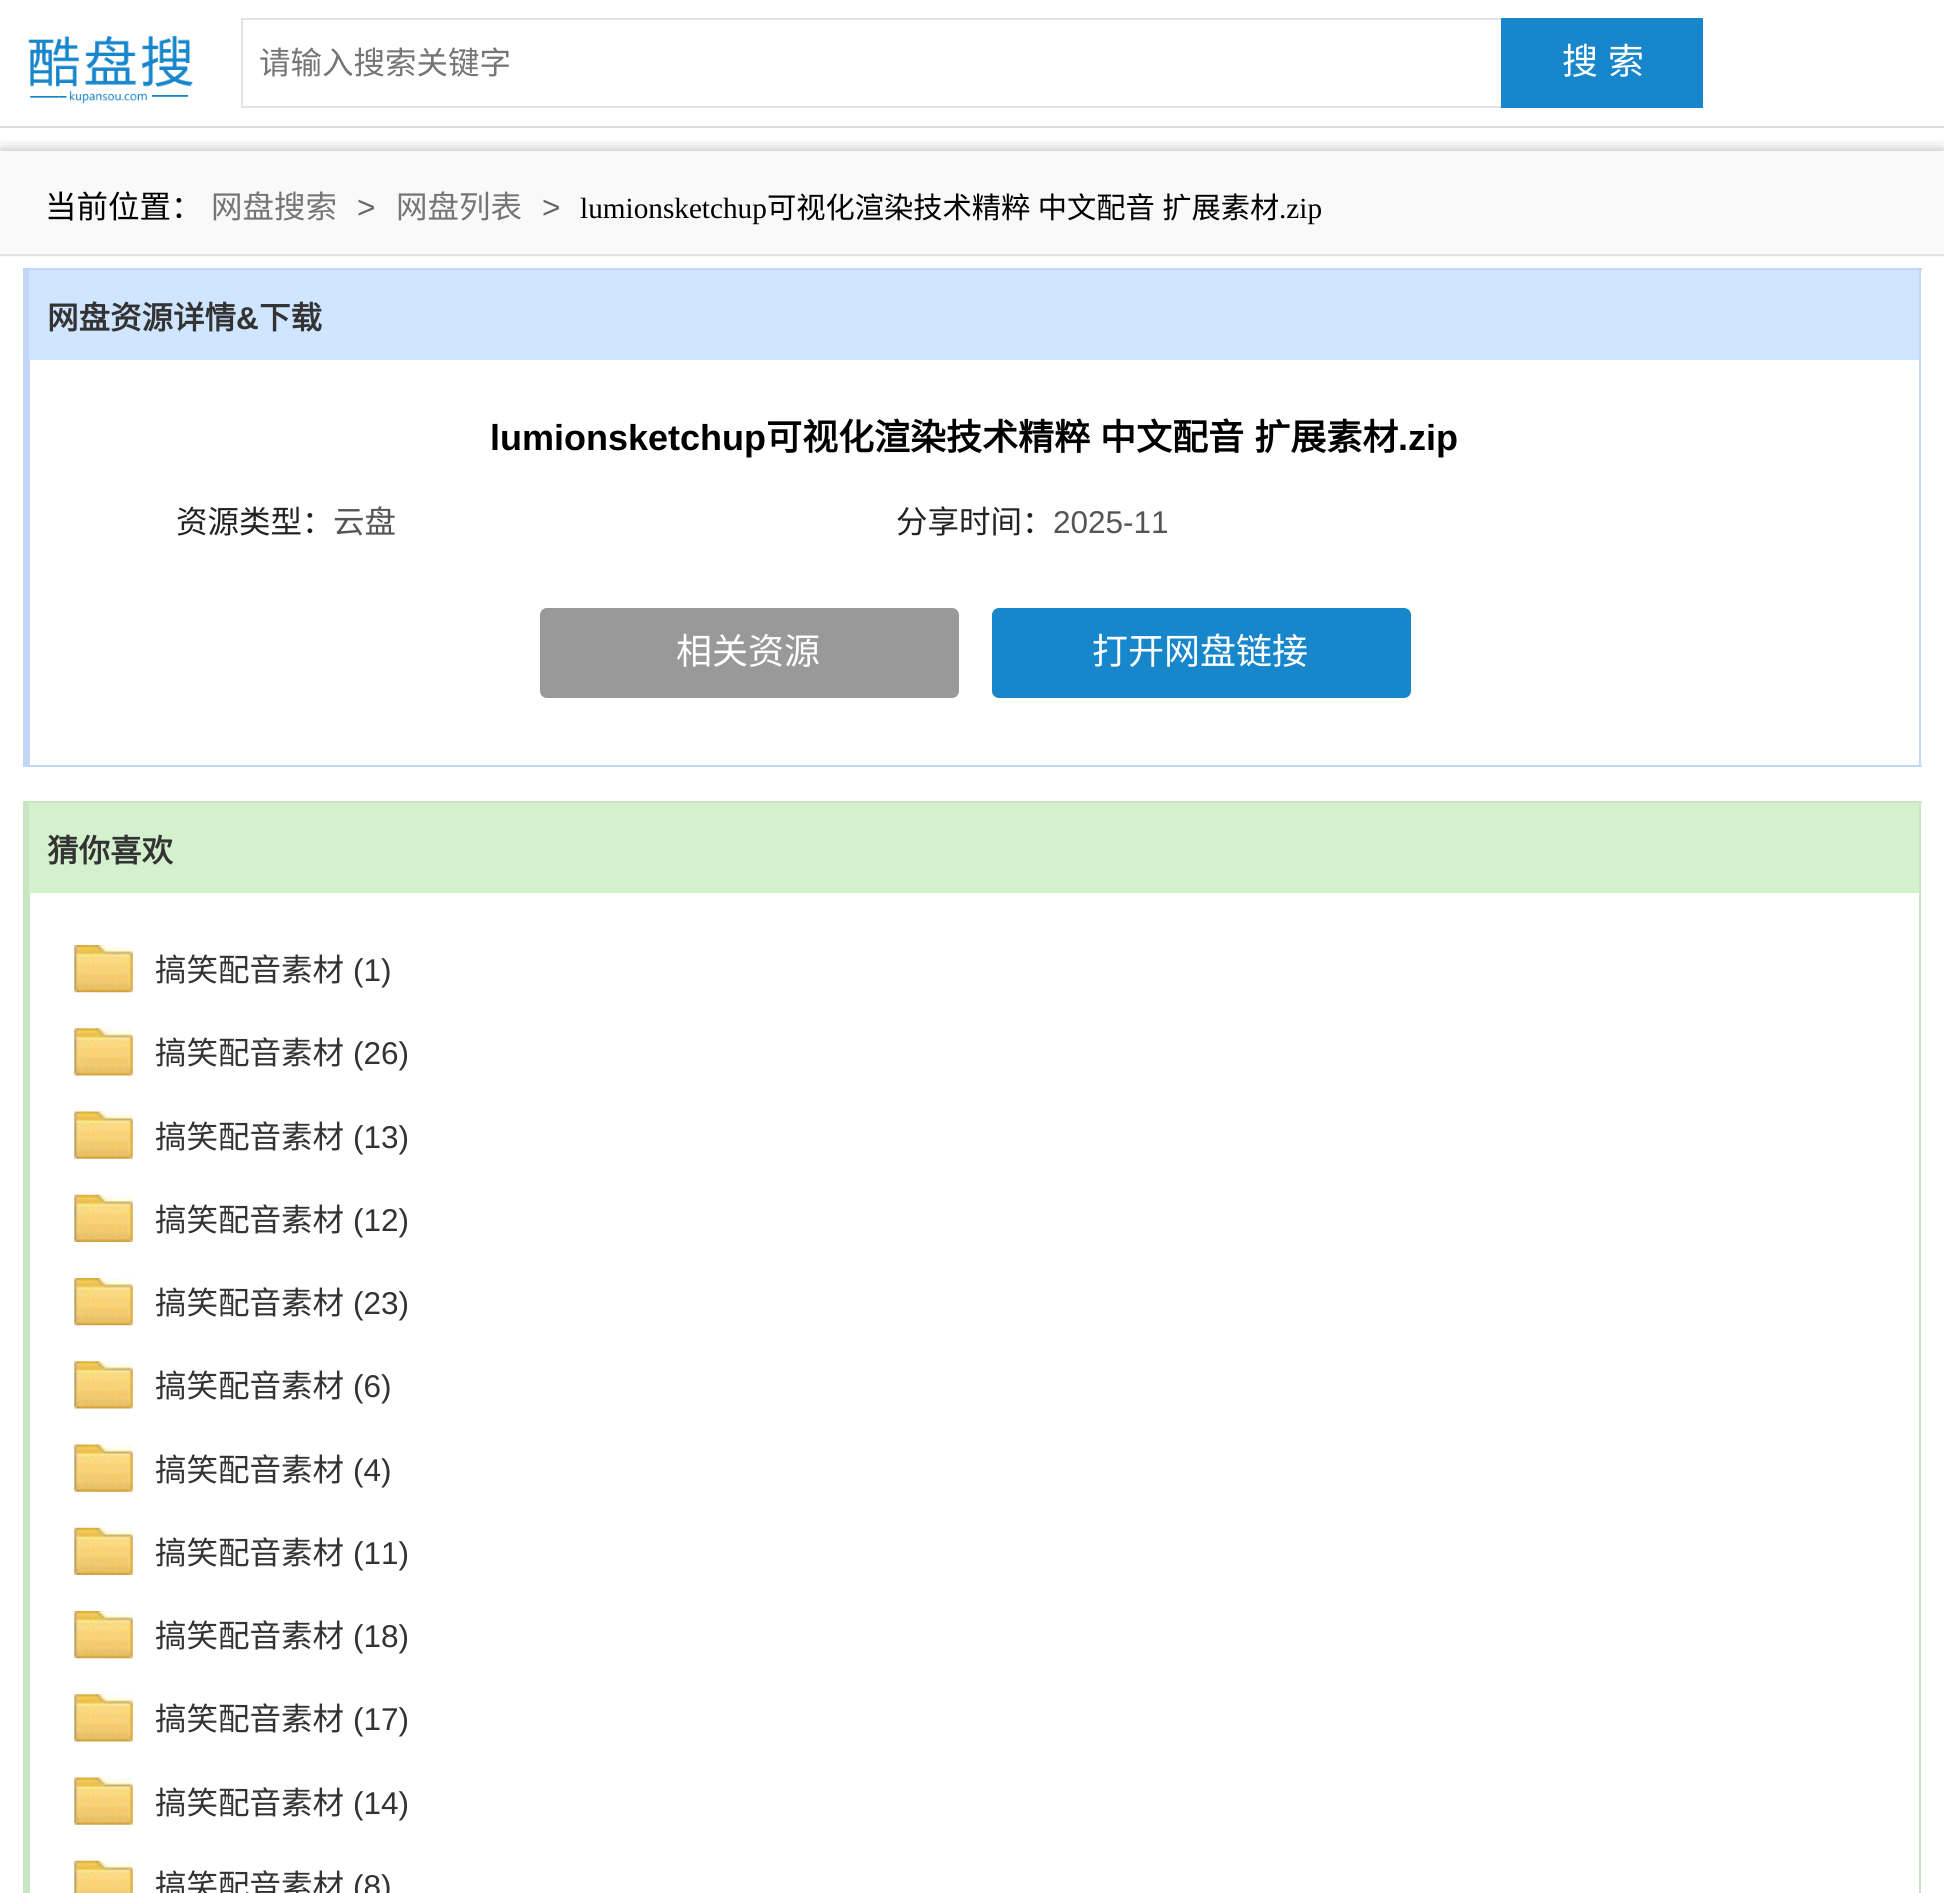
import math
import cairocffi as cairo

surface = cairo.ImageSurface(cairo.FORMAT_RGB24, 1944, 1893)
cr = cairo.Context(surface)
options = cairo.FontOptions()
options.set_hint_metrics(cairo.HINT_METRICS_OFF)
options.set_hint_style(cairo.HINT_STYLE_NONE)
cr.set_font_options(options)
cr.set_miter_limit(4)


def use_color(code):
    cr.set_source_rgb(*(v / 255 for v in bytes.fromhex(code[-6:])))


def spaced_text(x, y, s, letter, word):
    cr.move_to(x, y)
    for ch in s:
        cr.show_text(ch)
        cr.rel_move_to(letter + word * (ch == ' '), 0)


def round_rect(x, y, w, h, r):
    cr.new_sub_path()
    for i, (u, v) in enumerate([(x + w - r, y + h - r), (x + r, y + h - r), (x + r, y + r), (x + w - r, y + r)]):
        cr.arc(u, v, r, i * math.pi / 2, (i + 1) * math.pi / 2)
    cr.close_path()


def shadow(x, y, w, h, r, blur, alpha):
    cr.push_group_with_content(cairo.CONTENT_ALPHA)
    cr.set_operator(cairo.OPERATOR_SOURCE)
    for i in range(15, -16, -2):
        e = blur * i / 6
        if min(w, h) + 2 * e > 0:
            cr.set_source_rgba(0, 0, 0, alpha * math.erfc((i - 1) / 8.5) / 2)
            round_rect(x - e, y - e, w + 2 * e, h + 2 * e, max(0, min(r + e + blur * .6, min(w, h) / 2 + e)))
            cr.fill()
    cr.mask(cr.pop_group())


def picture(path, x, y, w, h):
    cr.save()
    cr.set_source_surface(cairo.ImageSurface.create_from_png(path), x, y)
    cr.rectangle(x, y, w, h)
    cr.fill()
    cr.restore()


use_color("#ffffff")
cr.paint()
use_color("#dddddd")
cr.rectangle(0, 126, 1944, 2)
cr.fill()
picture("img1.png", 28, 35, 165, 69)
use_color("#e3e3e3")
cr.rectangle(241, 18, 1264, 2)
cr.fill()
cr.rectangle(241, 106, 1264, 2)
cr.fill()
cr.rectangle(241, 18, 2, 90)
cr.fill()
cr.select_font_face("Noto Sans CJK SC")
cr.set_font_size(31.5)
use_color("#757575")
cr.move_to(259, 74)
cr.show_text("请输入搜索关键字")
use_color("#1886cb")
cr.rectangle(1501, 18, 202, 90)
cr.fill()
cr.set_font_size(36)
use_color("#ffffff")
spaced_text(1562, 74, "搜 索", 0, 2)
cr.save()
cr.rectangle(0, 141, 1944, 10)
cr.clip()
use_color("#000000")
shadow(0, 151, 1944, 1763, 0, 7, 0.3)
cr.restore()
use_color("#f9f9f9")
cr.rectangle(0, 151, 1944, 106)
cr.fill()
use_color("#e3e3e3")
cr.rectangle(0, 254, 1944, 2)
cr.fill()
cr.set_font_size(31.5)
use_color("#000000")
cr.move_to(45, 218)
cr.show_text("当前位置：")
use_color("#757575")
cr.move_to(211, 218)
cr.show_text("网盘搜索")
cr.select_font_face("Liberation Sans")
use_color("#666666")
cr.move_to(357, 218)
cr.show_text(">")
cr.select_font_face("Noto Sans CJK SC")
use_color("#757575")
cr.move_to(396, 218)
cr.show_text("网盘列表")
cr.select_font_face("Liberation Sans")
use_color("#666666")
cr.move_to(542, 218)
cr.show_text(">")
cr.select_font_face("Liberation Serif")
cr.set_font_size(29.25)
use_color("#000000")
cr.move_to(580, 218)
cr.show_text("lumionsketchup")
cr.select_font_face("Noto Sans CJK SC")
spaced_text(767, 218, "可视化渲染技术精粹 中文配音 扩展素材", 0, 1)
cr.select_font_face("Liberation Serif")
cr.move_to(1279, 218)
cr.show_text(".zip")
use_color("#c0d7f5")
cr.rectangle(23, 268, 1899, 2)
cr.fill()
cr.rectangle(1919, 268, 2, 499)
cr.fill()
cr.rectangle(23, 765, 1899, 2)
cr.fill()
cr.rectangle(23, 268, 7, 499)
cr.fill()
use_color("#d0e5ff")
cr.rectangle(29, 270, 1890, 90)
cr.fill()
cr.select_font_face("Noto Sans CJK SC", cairo.FONT_SLANT_NORMAL, cairo.FONT_WEIGHT_BOLD)
cr.set_font_size(31.5)
use_color("#333333")
cr.move_to(47, 329)
cr.show_text("网盘资源详情")
cr.select_font_face("Liberation Sans", cairo.FONT_SLANT_NORMAL, cairo.FONT_WEIGHT_BOLD)
cr.move_to(236, 329)
cr.show_text("&")
cr.select_font_face("Noto Sans CJK SC", cairo.FONT_SLANT_NORMAL, cairo.FONT_WEIGHT_BOLD)
cr.move_to(259, 329)
cr.show_text("下载")
cr.select_font_face("Liberation Sans", cairo.FONT_SLANT_NORMAL, cairo.FONT_WEIGHT_BOLD)
cr.set_font_size(36)
use_color("#000000")
cr.move_to(490, 450)
cr.show_text("lumionsketchup")
cr.select_font_face("Noto Sans CJK SC", cairo.FONT_SLANT_NORMAL, cairo.FONT_WEIGHT_BOLD)
spaced_text(766, 450, "可视化渲染技术精粹 中文配音 扩展素材", 0, 2)
cr.select_font_face("Liberation Sans", cairo.FONT_SLANT_NORMAL, cairo.FONT_WEIGHT_BOLD)
cr.move_to(1398, 450)
cr.show_text(".zip")
cr.select_font_face("Noto Sans CJK SC")
cr.set_font_size(31.5)
use_color("#222222")
cr.move_to(176, 533)
cr.show_text("资源类型：")
use_color("#555555")
cr.move_to(333, 533)
cr.show_text("云盘")
use_color("#222222")
cr.move_to(896, 533)
cr.show_text("分享时间：")
cr.select_font_face("Liberation Sans")
use_color("#555555")
cr.move_to(1053, 533)
cr.show_text("2025-11")
use_color("#999999")
round_rect(540, 608, 419, 90, 7)
cr.fill()
cr.select_font_face("Noto Sans CJK SC")
cr.set_font_size(36)
use_color("#ffffff")
cr.move_to(676, 664)
cr.show_text("相关资源")
use_color("#1886cb")
round_rect(992, 608, 419, 90, 7)
cr.fill()
use_color("#ffffff")
cr.move_to(1092, 664)
cr.show_text("打开网盘链接")
use_color("#c9e6c3")
cr.rectangle(23, 801, 1899, 2)
cr.fill()
cr.rectangle(1919, 801, 2, 1092)
cr.fill()
cr.rectangle(23, 801, 7, 1092)
cr.fill()
use_color("#d3f1cc")
cr.rectangle(29, 803, 1890, 90)
cr.fill()
cr.select_font_face("Noto Sans CJK SC", cairo.FONT_SLANT_NORMAL, cairo.FONT_WEIGHT_BOLD)
cr.set_font_size(31.5)
use_color("#333333")
cr.move_to(47, 862)
cr.show_text("猜你喜欢")
picture("img2.png", 74, 945, 59, 48)
cr.select_font_face("Noto Sans CJK SC")
cr.move_to(155, 981)
cr.show_text("搞笑配音素材")
cr.select_font_face("Liberation Sans")
cr.move_to(353, 981)
cr.show_text("(1)")
picture("img3.png", 74, 1028, 59, 48)
cr.select_font_face("Noto Sans CJK SC")
cr.move_to(155, 1064)
cr.show_text("搞笑配音素材")
cr.select_font_face("Liberation Sans")
cr.move_to(353, 1064)
cr.show_text("(26)")
picture("img4.png", 74, 1111, 59, 48)
cr.select_font_face("Noto Sans CJK SC")
cr.move_to(155, 1148)
cr.show_text("搞笑配音素材")
cr.select_font_face("Liberation Sans")
cr.move_to(353, 1148)
cr.show_text("(13)")
picture("img5.png", 74, 1194, 59, 48)
cr.select_font_face("Noto Sans CJK SC")
cr.move_to(155, 1231)
cr.show_text("搞笑配音素材")
cr.select_font_face("Liberation Sans")
cr.move_to(353, 1231)
cr.show_text("(12)")
picture("img2.png", 74, 1278, 59, 48)
cr.select_font_face("Noto Sans CJK SC")
cr.move_to(155, 1314)
cr.show_text("搞笑配音素材")
cr.select_font_face("Liberation Sans")
cr.move_to(353, 1314)
cr.show_text("(23)")
picture("img3.png", 74, 1361, 59, 48)
cr.select_font_face("Noto Sans CJK SC")
cr.move_to(155, 1397)
cr.show_text("搞笑配音素材")
cr.select_font_face("Liberation Sans")
cr.move_to(353, 1397)
cr.show_text("(6)")
picture("img4.png", 74, 1444, 59, 48)
cr.select_font_face("Noto Sans CJK SC")
cr.move_to(155, 1481)
cr.show_text("搞笑配音素材")
cr.select_font_face("Liberation Sans")
cr.move_to(353, 1481)
cr.show_text("(4)")
picture("img6.png", 74, 1527, 59, 48)
cr.select_font_face("Noto Sans CJK SC")
cr.move_to(155, 1564)
cr.show_text("搞笑配音素材")
cr.select_font_face("Liberation Sans")
cr.move_to(353, 1564)
cr.show_text("(11)")
picture("img2.png", 74, 1611, 59, 48)
cr.select_font_face("Noto Sans CJK SC")
cr.move_to(155, 1647)
cr.show_text("搞笑配音素材")
cr.select_font_face("Liberation Sans")
cr.move_to(353, 1647)
cr.show_text("(18)")
picture("img3.png", 74, 1694, 59, 48)
cr.select_font_face("Noto Sans CJK SC")
cr.move_to(155, 1730)
cr.show_text("搞笑配音素材")
cr.select_font_face("Liberation Sans")
cr.move_to(353, 1730)
cr.show_text("(17)")
picture("img4.png", 74, 1777, 59, 48)
cr.select_font_face("Noto Sans CJK SC")
cr.move_to(155, 1814)
cr.show_text("搞笑配音素材")
cr.select_font_face("Liberation Sans")
cr.move_to(353, 1814)
cr.show_text("(14)")
picture("img7.png", 74, 1860, 59, 33)
cr.select_font_face("Noto Sans CJK SC")
cr.move_to(155, 1897)
cr.show_text("搞笑配音素材")
cr.select_font_face("Liberation Sans")
cr.move_to(353, 1897)
cr.show_text("(8)")
surface.write_to_png("result.png")
